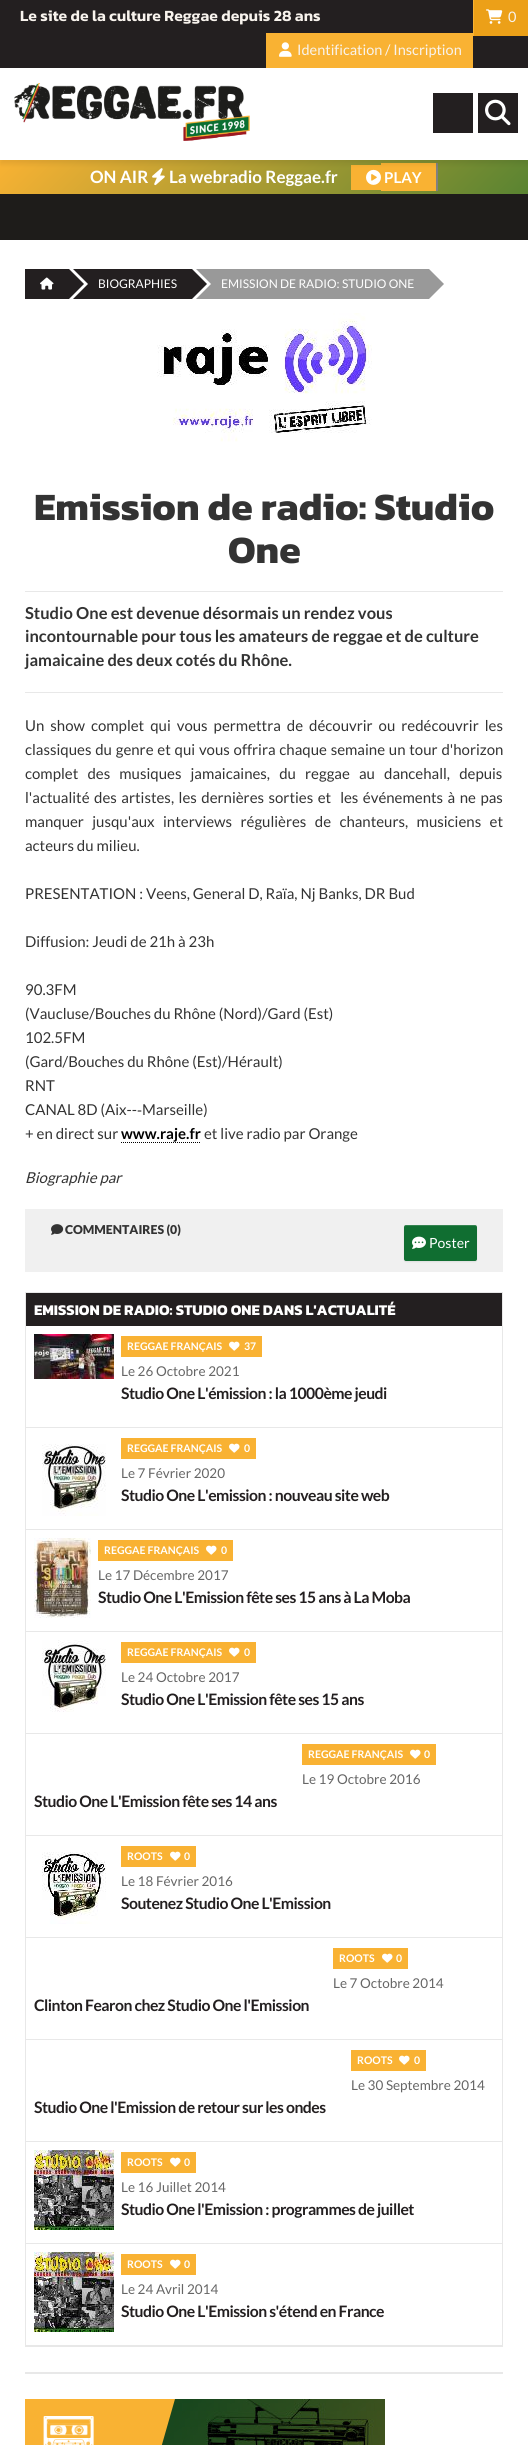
import math
import cairocffi as cairo

surface = cairo.ImageSurface(cairo.FORMAT_RGB24, 528, 2445)
cr = cairo.Context(surface)
options = cairo.FontOptions()
options.set_hint_metrics(cairo.HINT_METRICS_OFF)
options.set_hint_style(cairo.HINT_STYLE_NONE)
cr.set_font_options(options)
cr.set_miter_limit(4)


def use_color(code):
    cr.set_source_rgb(*(v / 255 for v in bytes.fromhex(code[-6:])))


def spaced_text(x, y, s, letter, word):
    cr.move_to(x, y)
    for ch in s:
        cr.show_text(ch)
        cr.rel_move_to(letter + word * (ch == ' '), 0)


def round_rect(x, y, w, h, r):
    cr.new_sub_path()
    for i, (u, v) in enumerate([(x + w - r, y + h - r), (x + r, y + h - r), (x + r, y + r), (x + w - r, y + r)]):
        cr.arc(u, v, r, i * math.pi / 2, (i + 1) * math.pi / 2)
    cr.close_path()


def shadow(x, y, w, h, r, blur, alpha):
    cr.push_group_with_content(cairo.CONTENT_ALPHA)
    cr.set_operator(cairo.OPERATOR_SOURCE)
    for i in range(15, -16, -2):
        e = blur * i / 6
        if min(w, h) + 2 * e > 0:
            cr.set_source_rgba(0, 0, 0, alpha * math.erfc((i - 1) / 8.5) / 2)
            round_rect(x - e, y - e, w + 2 * e, h + 2 * e, max(0, min(r + e + blur * .6, min(w, h) / 2 + e)))
            cr.fill()
    cr.mask(cr.pop_group())


def picture(path, x, y, w, h):
    cr.save()
    cr.set_source_surface(cairo.ImageSurface.create_from_png(path), x, y)
    cr.rectangle(x, y, w, h)
    cr.fill()
    cr.restore()


use_color("#1e1c1a")
cr.paint()
use_color("#231f20")
cr.rectangle(0, 0, 528, 68)
cr.fill()
cr.select_font_face("Kanit SemiBold")
cr.set_font_size(15.75)
use_color("#f8f3ed")
cr.move_to(20, 21)
cr.show_text("Le site de la culture Reggae depuis 28 ans")
use_color("#eca018")
cr.rectangle(474, 0, 54, 36)
cr.fill()
use_color("#f9b233")
cr.rectangle(473, 0, 1, 36)
cr.fill()
picture("img1.png", 486, 9, 17, 15)
cr.select_font_face("Lato")
cr.set_font_size(14.5)
use_color("#f8f3ed")
cr.move_to(508, 22)
cr.show_text("0")
use_color("#f9b233")
cr.rectangle(266, 33, 207, 35)
cr.fill()
picture("img2.png", 279, 42, 13, 15)
use_color("#f8f3ed")
cr.move_to(297, 55)
cr.show_text("Identification / Inscription")
gradient = cairo.LinearGradient(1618, 790, 494, -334)
gradient.add_color_stop_rgba(0, 0.063, 0.431, 0.192, 1)
gradient.add_color_stop_rgba(0.33, 0.976, 0.698, 0.2, 1)
gradient.add_color_stop_rgba(0.67, 0.149, 0.459, 0.192, 1)
gradient.add_color_stop_rgba(1, 0.976, 0.698, 0.2, 1)
cr.set_source(gradient)
cr.rectangle(0, 160, 528, 34)
cr.fill()
picture("img5.png", 152, 168, 13, 18)
use_color("#f9b233")
cr.rectangle(351, 165, 30, 25)
cr.fill()
cr.rectangle(381, 163, 55, 28)
cr.fill()
use_color("#808080")
cr.rectangle(436, 163, 2, 28)
cr.fill()
picture("img6.png", 366, 169, 15, 16)
use_color("#000000")
shadow(0, 72, 528, 92, 0, 2.5, 0.08)
use_color("#ffffff")
cr.rectangle(0, 68, 528, 92)
cr.fill()
picture("img3.png", 14, 83, 236, 58)
use_color("#231f20")
cr.rectangle(433, 93, 40, 40)
cr.fill()
cr.rectangle(478, 93, 40, 40)
cr.fill()
picture("img4.png", 485, 99, 26, 27)
cr.select_font_face("Lato", cairo.FONT_SLANT_NORMAL, cairo.FONT_WEIGHT_BOLD)
cr.set_font_size(17)
use_color("#ffffff")
cr.move_to(90, 183)
cr.show_text("ON AIR")
cr.move_to(169, 183)
cr.show_text("La webradio Reggae.fr")
cr.set_font_size(15)
cr.move_to(384, 183)
cr.show_text("PLAY")
cr.rectangle(0, 240, 528, 2205)
cr.fill()
use_color("#231f20")
cr.rectangle(25, 269, 44, 30)
cr.fill()
picture("img7.png", 40, 277, 14, 13)
cr.rectangle(73, 269, 119, 30)
cr.fill()
use_color("#ffffff")
cr.new_path()
cr.move_to(73, 299)
cr.line_to(73, 269)
cr.line_to(88, 284)
cr.close_path()
cr.fill()
use_color("#231f20")
cr.new_path()
cr.move_to(69, 299)
cr.line_to(69, 269)
cr.line_to(84, 284)
cr.close_path()
cr.fill()
cr.select_font_face("Lato")
cr.set_font_size(12)
use_color("#ffffff")
cr.move_to(98, 288)
cr.show_text("BIOGRAPHIES")
use_color("#999999")
cr.rectangle(196, 269, 233, 30)
cr.fill()
use_color("#ffffff")
cr.new_path()
cr.move_to(196, 299)
cr.line_to(196, 269)
cr.line_to(211, 284)
cr.close_path()
cr.fill()
use_color("#231f20")
cr.new_path()
cr.move_to(192, 299)
cr.line_to(192, 269)
cr.line_to(207, 284)
cr.close_path()
cr.fill()
use_color("#ffffff")
cr.move_to(221, 288)
cr.show_text("EMISSION DE RADIO: STUDIO ONE")
use_color("#999999")
cr.new_path()
cr.move_to(429, 299)
cr.line_to(429, 269)
cr.line_to(444, 284)
cr.close_path()
cr.fill()
picture("img8.png", 157, 313, 215, 129)
cr.select_font_face("Kanit", cairo.FONT_SLANT_NORMAL, cairo.FONT_WEIGHT_BOLD)
cr.set_font_size(39)
use_color("#333333")
cr.move_to(34, 520)
cr.show_text("Emission de radio: Studio")
cr.move_to(228, 563)
cr.show_text("One")
use_color("#e8e8e8")
cr.rectangle(25, 591, 478, 1)
cr.fill()
cr.rectangle(25, 692, 478, 1)
cr.fill()
cr.select_font_face("Lato", cairo.FONT_SLANT_NORMAL, cairo.FONT_WEIGHT_BOLD)
cr.set_font_size(16.5)
use_color("#333333")
cr.move_to(25, 619)
cr.show_text("Studio One est devenue désormais un rendez vous")
cr.move_to(25, 642)
cr.show_text("incontournable pour tous les amateurs de reggae et de culture")
cr.move_to(25, 666)
cr.show_text("jamaicaine des deux cotés du Rhône.")
cr.select_font_face("Lato")
cr.set_font_size(15)
spaced_text(25, 731, "Un show complet qui vous permettra de découvrir ou redécouvrir les", 0, 3.1)
spaced_text(25, 755, "classiques du genre et qui vous offrira chaque semaine un tour d'horizon", 0, 0.9)
spaced_text(25, 779, "complet des musiques jamaicaines, du reggae au dancehall, depuis", 0, 6.25)
spaced_text(25, 803, "l'actualité des artistes, les dernières sorties et  les événements à ne pas", 0, 1.6)
spaced_text(25, 827, "manquer jusqu'aux interviews régulières de chanteurs, musiciens et", 0, 5.5)
cr.move_to(25, 851)
cr.show_text("acteurs du milieu.")
cr.move_to(25, 899)
cr.show_text("PRESENTATION : Veens, General D, Raïa, Nj Banks, DR Bud")
cr.move_to(25, 947)
cr.show_text("Diffusion: Jeudi de 21h à 23h")
cr.move_to(25, 995)
cr.show_text("90.3FM")
cr.move_to(25, 1019)
cr.show_text("(Vaucluse/Bouches du Rhône (Nord)/Gard (Est)")
cr.move_to(25, 1043)
cr.show_text("102.5FM")
cr.move_to(25, 1067)
cr.show_text("(Gard/Bouches du Rhône (Est)/Hérault)")
cr.move_to(25, 1091)
cr.show_text("RNT")
cr.move_to(25, 1115)
cr.show_text("CANAL 8D (Aix--")
cr.select_font_face("Liberation Sans")
cr.move_to(137, 1115)
cr.show_text("‐")
cr.select_font_face("Lato")
cr.move_to(142, 1115)
cr.show_text("Marseille)")
cr.move_to(25, 1139)
cr.show_text("+ en direct sur")
cr.select_font_face("Lato", cairo.FONT_SLANT_NORMAL, cairo.FONT_WEIGHT_BOLD)
use_color("#000000")
cr.move_to(121, 1139)
cr.show_text("www.raje.fr")
cr.new_path()
cr.move_to(121, 1142.5)
cr.line_to(201, 1142.5)
cr.set_line_width(1)
cr.set_dash([1, 1])
cr.stroke()
cr.select_font_face("Lato")
use_color("#333333")
cr.move_to(204, 1139)
cr.show_text("et live radio par Orange")
cr.select_font_face("Lato", cairo.FONT_SLANT_ITALIC)
cr.move_to(25, 1183)
cr.show_text("Biographie par")
use_color("#f0f0f0")
cr.rectangle(25, 1209, 478, 63)
cr.fill()
picture("img9.png", 51, 1224, 13, 11)
cr.select_font_face("Lato Black")
cr.set_font_size(12.25)
use_color("#333333")
cr.move_to(65, 1234)
cr.show_text("COMMENTAIRES (0)")
use_color("#000000")
shadow(404, 1226, 73, 36, 2, 0.5, 0.07)
use_color("#106e31")
round_rect(404, 1225, 73, 36, 2)
cr.fill()
cr.set_source_rgba(1, 1, 1, 0.15)
cr.new_path()
cr.move_to(406, 1226)
cr.line_to(475, 1226)
cr.curve_to(476, 1226, 477, 1227, 477, 1228)
cr.curve_to(477, 1222, 467, 1225, 464, 1225)
cr.line_to(418, 1225)
cr.curve_to(414, 1225, 404, 1222, 404, 1228)
cr.curve_to(404, 1227, 405, 1226, 406, 1226)
cr.close_path()
cr.fill()
picture("img10.png", 412, 1236, 14, 13)
cr.select_font_face("Lato")
cr.set_font_size(14)
use_color("#ffffff")
cr.move_to(429, 1248)
cr.show_text("Poster")
cr.rectangle(25.5, 1292.5, 477, 1054)
use_color("#e8e8e8")
cr.set_dash([])
cr.stroke()
use_color("#231f20")
cr.rectangle(26, 1293, 476, 33)
cr.fill()
cr.select_font_face("Kanit", cairo.FONT_SLANT_NORMAL, cairo.FONT_WEIGHT_BOLD)
cr.set_font_size(15)
use_color("#ffffff")
cr.move_to(34, 1315)
cr.show_text("EMISSION DE RADIO: STUDIO ONE DANS L'ACTUALITÉ")
use_color("#e8e8e8")
cr.rectangle(26, 1427, 476, 1)
cr.fill()
picture("img11.png", 34, 1334, 80, 45)
use_color("#f9b233")
cr.rectangle(121, 1336, 141, 21)
cr.fill()
cr.select_font_face("Lato", cairo.FONT_SLANT_NORMAL, cairo.FONT_WEIGHT_BOLD)
cr.set_font_size(10.5)
use_color("#ffffff")
cr.move_to(127, 1350)
cr.show_text("REGGAE FRANÇAIS")
picture("img12.png", 229, 1341, 11, 10)
cr.move_to(244, 1350)
cr.show_text("37")
cr.select_font_face("Lato")
cr.set_font_size(13.5)
use_color("#666666")
cr.move_to(121, 1376)
cr.show_text("Le 26 Octobre 2021")
cr.select_font_face("Lato", cairo.FONT_SLANT_NORMAL, cairo.FONT_WEIGHT_BOLD)
cr.set_font_size(15.75)
use_color("#231f20")
spaced_text(121, 1399, "Studio One L'émission : la 1000ème jeudi", -0.5, 0)
use_color("#e8e8e8")
cr.rectangle(26, 1529, 476, 1)
cr.fill()
picture("img13.png", 42, 1444, 64, 72)
use_color("#f9b233")
cr.rectangle(121, 1438, 135, 21)
cr.fill()
cr.set_font_size(10.5)
use_color("#ffffff")
cr.move_to(127, 1452)
cr.show_text("REGGAE FRANÇAIS")
picture("img12.png", 229, 1443, 11, 10)
cr.move_to(244, 1452)
cr.show_text("0")
cr.select_font_face("Lato")
cr.set_font_size(13.5)
use_color("#666666")
cr.move_to(121, 1478)
cr.show_text("Le 7 Février 2020")
cr.select_font_face("Lato", cairo.FONT_SLANT_NORMAL, cairo.FONT_WEIGHT_BOLD)
cr.set_font_size(15.75)
use_color("#231f20")
spaced_text(121, 1501, "Studio One L'emission : nouveau site web", -0.5, 0)
use_color("#e8e8e8")
cr.rectangle(26, 1631, 476, 1)
cr.fill()
picture("img14.png", 34, 1538, 57, 80)
use_color("#f9b233")
cr.rectangle(98, 1540, 135, 21)
cr.fill()
cr.set_font_size(10.5)
use_color("#ffffff")
cr.move_to(104, 1554)
cr.show_text("REGGAE FRANÇAIS")
picture("img12.png", 206, 1545, 11, 10)
cr.move_to(221, 1554)
cr.show_text("0")
cr.select_font_face("Lato")
cr.set_font_size(13.5)
use_color("#666666")
cr.move_to(98, 1580)
cr.show_text("Le 17 Décembre 2017")
cr.select_font_face("Lato", cairo.FONT_SLANT_NORMAL, cairo.FONT_WEIGHT_BOLD)
cr.set_font_size(15.75)
use_color("#231f20")
spaced_text(98, 1603, "Studio One L'Emission fête ses 15 ans à La Moba", -0.5, 0)
use_color("#e8e8e8")
cr.rectangle(26, 1733, 476, 1)
cr.fill()
picture("img15.png", 42, 1640, 64, 72)
use_color("#f9b233")
cr.rectangle(121, 1642, 135, 21)
cr.fill()
cr.set_font_size(10.5)
use_color("#ffffff")
cr.move_to(127, 1656)
cr.show_text("REGGAE FRANÇAIS")
picture("img12.png", 229, 1647, 11, 10)
cr.move_to(244, 1656)
cr.show_text("0")
cr.select_font_face("Lato")
cr.set_font_size(13.5)
use_color("#666666")
cr.move_to(121, 1682)
cr.show_text("Le 24 Octobre 2017")
cr.select_font_face("Lato", cairo.FONT_SLANT_NORMAL, cairo.FONT_WEIGHT_BOLD)
cr.set_font_size(15.75)
use_color("#231f20")
spaced_text(121, 1705, "Studio One L'Emission fête ses 15 ans", -0.5, 0)
use_color("#e8e8e8")
cr.rectangle(26, 1835, 476, 1)
cr.fill()
use_color("#f9b233")
cr.rectangle(302, 1744, 134, 21)
cr.fill()
cr.set_font_size(10.5)
use_color("#ffffff")
cr.move_to(308, 1758)
cr.show_text("REGGAE FRANÇAIS")
picture("img12.png", 410, 1749, 11, 10)
cr.move_to(424, 1758)
cr.show_text("0")
cr.select_font_face("Lato")
cr.set_font_size(13.5)
use_color("#666666")
cr.move_to(302, 1784)
cr.show_text("Le 19 Octobre 2016")
cr.select_font_face("Lato", cairo.FONT_SLANT_NORMAL, cairo.FONT_WEIGHT_BOLD)
cr.set_font_size(15.75)
use_color("#231f20")
spaced_text(34, 1807, "Studio One L'Emission fête ses 14 ans", -0.5, 0)
use_color("#e8e8e8")
cr.rectangle(26, 1937, 476, 1)
cr.fill()
picture("img16.png", 42, 1852, 64, 72)
use_color("#f9b233")
cr.rectangle(121, 1846, 75, 21)
cr.fill()
cr.set_font_size(10.5)
use_color("#ffffff")
cr.move_to(127, 1860)
cr.show_text("ROOTS")
picture("img12.png", 170, 1851, 11, 10)
cr.move_to(184, 1860)
cr.show_text("0")
cr.select_font_face("Lato")
cr.set_font_size(13.5)
use_color("#666666")
cr.move_to(121, 1886)
cr.show_text("Le 18 Février 2016")
cr.select_font_face("Lato", cairo.FONT_SLANT_NORMAL, cairo.FONT_WEIGHT_BOLD)
cr.set_font_size(15.75)
use_color("#231f20")
spaced_text(121, 1909, "Soutenez Studio One L'Emission", -0.5, 0)
use_color("#e8e8e8")
cr.rectangle(26, 2039, 476, 1)
cr.fill()
use_color("#f9b233")
cr.rectangle(333, 1948, 75, 21)
cr.fill()
cr.set_font_size(10.5)
use_color("#ffffff")
cr.move_to(339, 1962)
cr.show_text("ROOTS")
picture("img12.png", 382, 1953, 11, 10)
cr.move_to(396, 1962)
cr.show_text("0")
cr.select_font_face("Lato")
cr.set_font_size(13.5)
use_color("#666666")
cr.move_to(333, 1988)
cr.show_text("Le 7 Octobre 2014")
cr.select_font_face("Lato", cairo.FONT_SLANT_NORMAL, cairo.FONT_WEIGHT_BOLD)
cr.set_font_size(15.75)
use_color("#231f20")
spaced_text(34, 2011, "Clinton Fearon chez Studio One l'Emission", -0.5, 0)
use_color("#e8e8e8")
cr.rectangle(26, 2141, 476, 1)
cr.fill()
use_color("#f9b233")
cr.rectangle(351, 2050, 75, 21)
cr.fill()
cr.set_font_size(10.5)
use_color("#ffffff")
cr.move_to(357, 2064)
cr.show_text("ROOTS")
picture("img12.png", 399, 2055, 11, 10)
cr.move_to(414, 2064)
cr.show_text("0")
cr.select_font_face("Lato")
cr.set_font_size(13.5)
use_color("#666666")
cr.move_to(351, 2090)
cr.show_text("Le 30 Septembre 2014")
cr.select_font_face("Lato", cairo.FONT_SLANT_NORMAL, cairo.FONT_WEIGHT_BOLD)
cr.set_font_size(15.75)
use_color("#231f20")
spaced_text(34, 2113, "Studio One l'Emission de retour sur les ondes", -0.5, 0)
use_color("#e8e8e8")
cr.rectangle(26, 2243, 476, 1)
cr.fill()
picture("img17.png", 34, 2150, 80, 80)
use_color("#f9b233")
cr.rectangle(121, 2152, 75, 21)
cr.fill()
cr.set_font_size(10.5)
use_color("#ffffff")
cr.move_to(127, 2166)
cr.show_text("ROOTS")
picture("img12.png", 170, 2157, 11, 10)
cr.move_to(184, 2166)
cr.show_text("0")
cr.select_font_face("Lato")
cr.set_font_size(13.5)
use_color("#666666")
cr.move_to(121, 2192)
cr.show_text("Le 16 Juillet 2014")
cr.select_font_face("Lato", cairo.FONT_SLANT_NORMAL, cairo.FONT_WEIGHT_BOLD)
cr.set_font_size(15.75)
use_color("#231f20")
spaced_text(121, 2215, "Studio One l'Emission : programmes de juillet", -0.5, 0)
use_color("#e8e8e8")
cr.rectangle(26, 2345, 476, 1)
cr.fill()
picture("img18.png", 34, 2252, 80, 80)
use_color("#f9b233")
cr.rectangle(121, 2254, 75, 21)
cr.fill()
cr.set_font_size(10.5)
use_color("#ffffff")
cr.move_to(127, 2268)
cr.show_text("ROOTS")
picture("img12.png", 170, 2259, 11, 10)
cr.move_to(184, 2268)
cr.show_text("0")
cr.select_font_face("Lato")
cr.set_font_size(13.5)
use_color("#666666")
cr.move_to(121, 2294)
cr.show_text("Le 24 Avril 2014")
cr.select_font_face("Lato", cairo.FONT_SLANT_NORMAL, cairo.FONT_WEIGHT_BOLD)
cr.set_font_size(15.75)
use_color("#231f20")
spaced_text(121, 2317, "Studio One L'Emission s'étend en France", -0.5, 0)
use_color("#e8e8e8")
cr.rectangle(25, 2372, 478, 2)
cr.fill()
picture("img19.png", 161, 2399, 224, 46)
use_color("#f9b233")
cr.rectangle(25, 2399, 110, 46)
cr.fill()
picture("img20.png", 43, 2416, 51, 29)
cr.new_path()
cr.move_to(135, 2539)
cr.line_to(135, 2399)
cr.line_to(175, 2399)
cr.close_path()
cr.fill()
surface.write_to_png("result.png")
